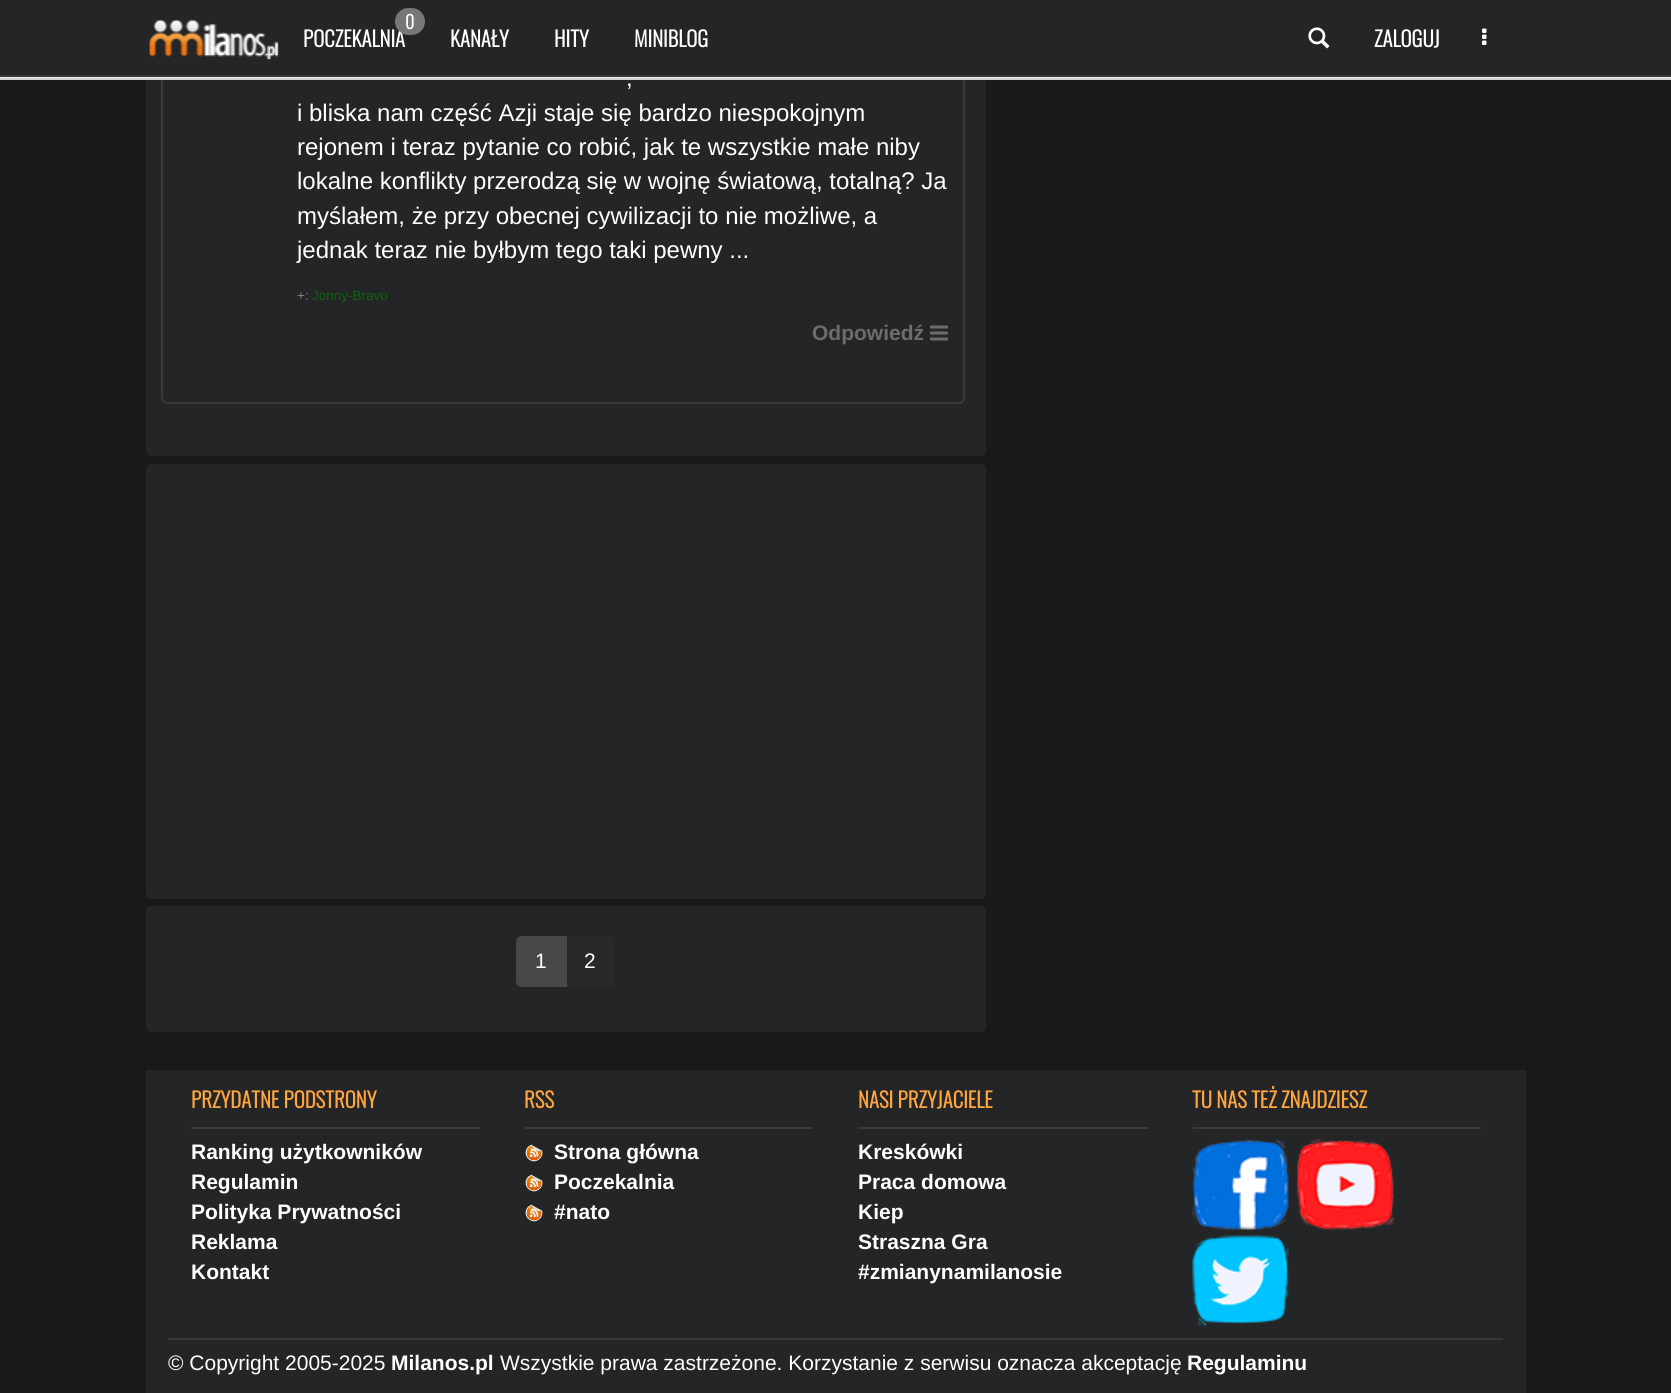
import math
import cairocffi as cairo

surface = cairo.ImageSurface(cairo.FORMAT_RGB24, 1671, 1393)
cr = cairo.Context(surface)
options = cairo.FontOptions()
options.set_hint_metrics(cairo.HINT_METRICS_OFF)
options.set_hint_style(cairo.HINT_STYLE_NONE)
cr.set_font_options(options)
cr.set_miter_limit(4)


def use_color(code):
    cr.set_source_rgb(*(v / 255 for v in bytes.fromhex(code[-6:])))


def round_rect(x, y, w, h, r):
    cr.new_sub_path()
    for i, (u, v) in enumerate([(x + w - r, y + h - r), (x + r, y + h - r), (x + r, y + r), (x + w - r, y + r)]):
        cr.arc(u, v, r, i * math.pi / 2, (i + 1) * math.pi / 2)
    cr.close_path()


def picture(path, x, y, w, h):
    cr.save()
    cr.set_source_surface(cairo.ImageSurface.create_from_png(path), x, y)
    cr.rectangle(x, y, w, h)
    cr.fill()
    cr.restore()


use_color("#18191a")
cr.paint()
use_color("#242526")
round_rect(146, -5, 840, 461, 5)
cr.fill()
round_rect(162, -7, 802, 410, 5)
use_color("#393a3b")
cr.stroke()
use_color("#242526")
cr.rectangle(0, 0, 1671, 75)
cr.fill()
use_color("#393a3b")
cr.rectangle(0, 75, 1671, 2)
cr.fill()
picture("img1.png", 149, 20, 130, 40)
cr.select_font_face("Oswald", cairo.FONT_SLANT_NORMAL, cairo.FONT_WEIGHT_BOLD)
cr.set_font_size(21)
use_color("#ffffff")
cr.move_to(303, 47)
cr.show_text("POCZEKALNIA")
use_color("#777777")
round_rect(395, 8, 30, 27, 13.5)
cr.fill()
cr.set_font_size(18)
use_color("#ffffff")
cr.move_to(405, 29)
cr.show_text("0")
cr.set_font_size(21)
cr.move_to(450, 47)
cr.show_text("KANAŁY")
cr.move_to(554, 47)
cr.show_text("HITY")
cr.move_to(634, 47)
cr.show_text("MINIBLOG")
picture("img2.png", 1308, 27, 22, 22)
cr.move_to(1374, 47)
cr.show_text("ZALOGUJ")
picture("img3.png", 1482, 28, 5, 17)
use_color("#efefef")
cr.rectangle(0, 77, 1671, 1)
cr.fill()
use_color("#d3d0d0")
cr.rectangle(0, 78, 1671, 2)
cr.fill()
cr.select_font_face("Liberation Sans")
cr.set_font_size(24)
use_color("#ffffff")
cr.move_to(626, 86)
cr.show_text(",")
cr.move_to(297, 121)
cr.show_text("i bliska nam część Azji staje się bardzo niespokojnym")
cr.move_to(297, 155)
cr.show_text("rejonem i teraz pytanie co robić, jak te wszystkie małe niby")
cr.move_to(297, 189)
cr.show_text("lokalne konflikty przerodzą się w wojnę światową, totalną? Ja")
cr.move_to(297, 224)
cr.show_text("myślałem, że przy obecnej cywilizacji to nie możliwe, a")
cr.move_to(297, 258)
cr.show_text("jednak teraz nie byłbym tego taki pewny ...")
cr.set_font_size(13.5)
use_color("#808080")
cr.move_to(297, 300)
cr.show_text("+:")
use_color("#0b650b")
cr.move_to(312, 300)
cr.show_text("Jonny-Bravo")
cr.select_font_face("Liberation Sans", cairo.FONT_SLANT_NORMAL, cairo.FONT_WEIGHT_BOLD)
cr.set_font_size(21)
use_color("#6c6c6c")
cr.move_to(812, 340)
cr.show_text("Odpowiedź")
picture("img4.png", 930, 325, 18, 16)
use_color("#242526")
round_rect(146, 464, 840, 435, 5)
cr.fill()
round_rect(146, 906, 840, 126, 5)
cr.fill()
use_color("#292929")
cr.new_path()
cr.move_to(566, 936)
cr.line_to(609, 936)
cr.curve_to(612.5, 936, 615, 938.5, 615, 942)
cr.line_to(615, 981)
cr.curve_to(615, 984.5, 612.5, 987, 609, 987)
cr.line_to(566, 987)
cr.close_path()
cr.fill()
use_color("#484848")
cr.new_path()
cr.move_to(522, 937)
cr.line_to(566, 937)
cr.line_to(566, 986)
cr.line_to(522, 986)
cr.curve_to(519, 986, 517, 984, 517, 981)
cr.line_to(517, 942)
cr.curve_to(517, 939, 519, 937, 522, 937)
cr.close_path()
cr.fill_preserve()
cr.stroke()
cr.select_font_face("Liberation Sans")
use_color("#ffffff")
cr.move_to(535, 968)
cr.show_text("1")
cr.move_to(584, 968)
cr.show_text("2")
use_color("#242526")
cr.rectangle(146, 1070, 1380, 323)
cr.fill()
cr.select_font_face("Oswald", cairo.FONT_SLANT_NORMAL, cairo.FONT_WEIGHT_BOLD)
use_color("#ffa53f")
cr.move_to(191, 1108)
cr.show_text("PRZYDATNE PODSTRONY")
use_color("#393a3b")
cr.rectangle(191, 1127, 289, 2)
cr.fill()
cr.select_font_face("Liberation Sans", cairo.FONT_SLANT_NORMAL, cairo.FONT_WEIGHT_BOLD)
use_color("#ffffff")
cr.move_to(191, 1159)
cr.show_text("Ranking użytkowników")
cr.move_to(191, 1189)
cr.show_text("Regulamin")
cr.move_to(191, 1219)
cr.show_text("Polityka Prywatności")
cr.move_to(191, 1249)
cr.show_text("Reklama")
cr.move_to(191, 1279)
cr.show_text("Kontakt")
cr.select_font_face("Oswald", cairo.FONT_SLANT_NORMAL, cairo.FONT_WEIGHT_BOLD)
use_color("#ffa53f")
cr.move_to(524, 1108)
cr.show_text("RSS")
use_color("#393a3b")
cr.rectangle(525, 1127, 288, 2)
cr.fill()
picture("img5.png", 525, 1144, 18, 18)
cr.select_font_face("Liberation Sans", cairo.FONT_SLANT_NORMAL, cairo.FONT_WEIGHT_BOLD)
use_color("#ffffff")
cr.move_to(554, 1159)
cr.show_text("Strona główna")
picture("img5.png", 525, 1174, 18, 18)
cr.move_to(554, 1189)
cr.show_text("Poczekalnia")
picture("img5.png", 525, 1204, 18, 18)
cr.move_to(554, 1219)
cr.show_text("#nato")
cr.select_font_face("Oswald", cairo.FONT_SLANT_NORMAL, cairo.FONT_WEIGHT_BOLD)
use_color("#ffa53f")
cr.move_to(858, 1108)
cr.show_text("NASI PRZYJACIELE")
use_color("#393a3b")
cr.rectangle(858, 1127, 290, 2)
cr.fill()
cr.select_font_face("Liberation Sans", cairo.FONT_SLANT_NORMAL, cairo.FONT_WEIGHT_BOLD)
use_color("#ffffff")
cr.move_to(858, 1159)
cr.show_text("Kreskówki")
cr.move_to(858, 1189)
cr.show_text("Praca domowa")
cr.move_to(858, 1219)
cr.show_text("Kiep")
cr.move_to(858, 1249)
cr.show_text("Straszna Gra")
cr.move_to(858, 1279)
cr.show_text("#zmianynamilanosie")
cr.select_font_face("Oswald", cairo.FONT_SLANT_NORMAL, cairo.FONT_WEIGHT_BOLD)
use_color("#ffa53f")
cr.move_to(1192, 1108)
cr.show_text("TU NAS TEŻ ZNAJDZIESZ")
use_color("#393a3b")
cr.rectangle(1193, 1127, 288, 2)
cr.fill()
picture("img6.png", 1192, 1139, 97, 91)
picture("img7.png", 1297, 1139, 97, 91)
picture("img8.png", 1192, 1235, 97, 91)
cr.rectangle(168, 1338, 1335, 2)
cr.fill()
cr.select_font_face("Liberation Sans")
use_color("#ffffff")
cr.move_to(168, 1370)
cr.show_text("© Copyright 2005-2025")
cr.select_font_face("Liberation Sans", cairo.FONT_SLANT_NORMAL, cairo.FONT_WEIGHT_BOLD)
cr.move_to(391, 1370)
cr.show_text("Milanos.pl")
cr.select_font_face("Liberation Sans")
cr.move_to(500, 1370)
cr.show_text("Wszystkie prawa zastrzeżone. Korzystanie z serwisu oznacza akceptację")
cr.select_font_face("Liberation Sans", cairo.FONT_SLANT_NORMAL, cairo.FONT_WEIGHT_BOLD)
cr.move_to(1187, 1370)
cr.show_text("Regulaminu")
surface.write_to_png("result.png")
